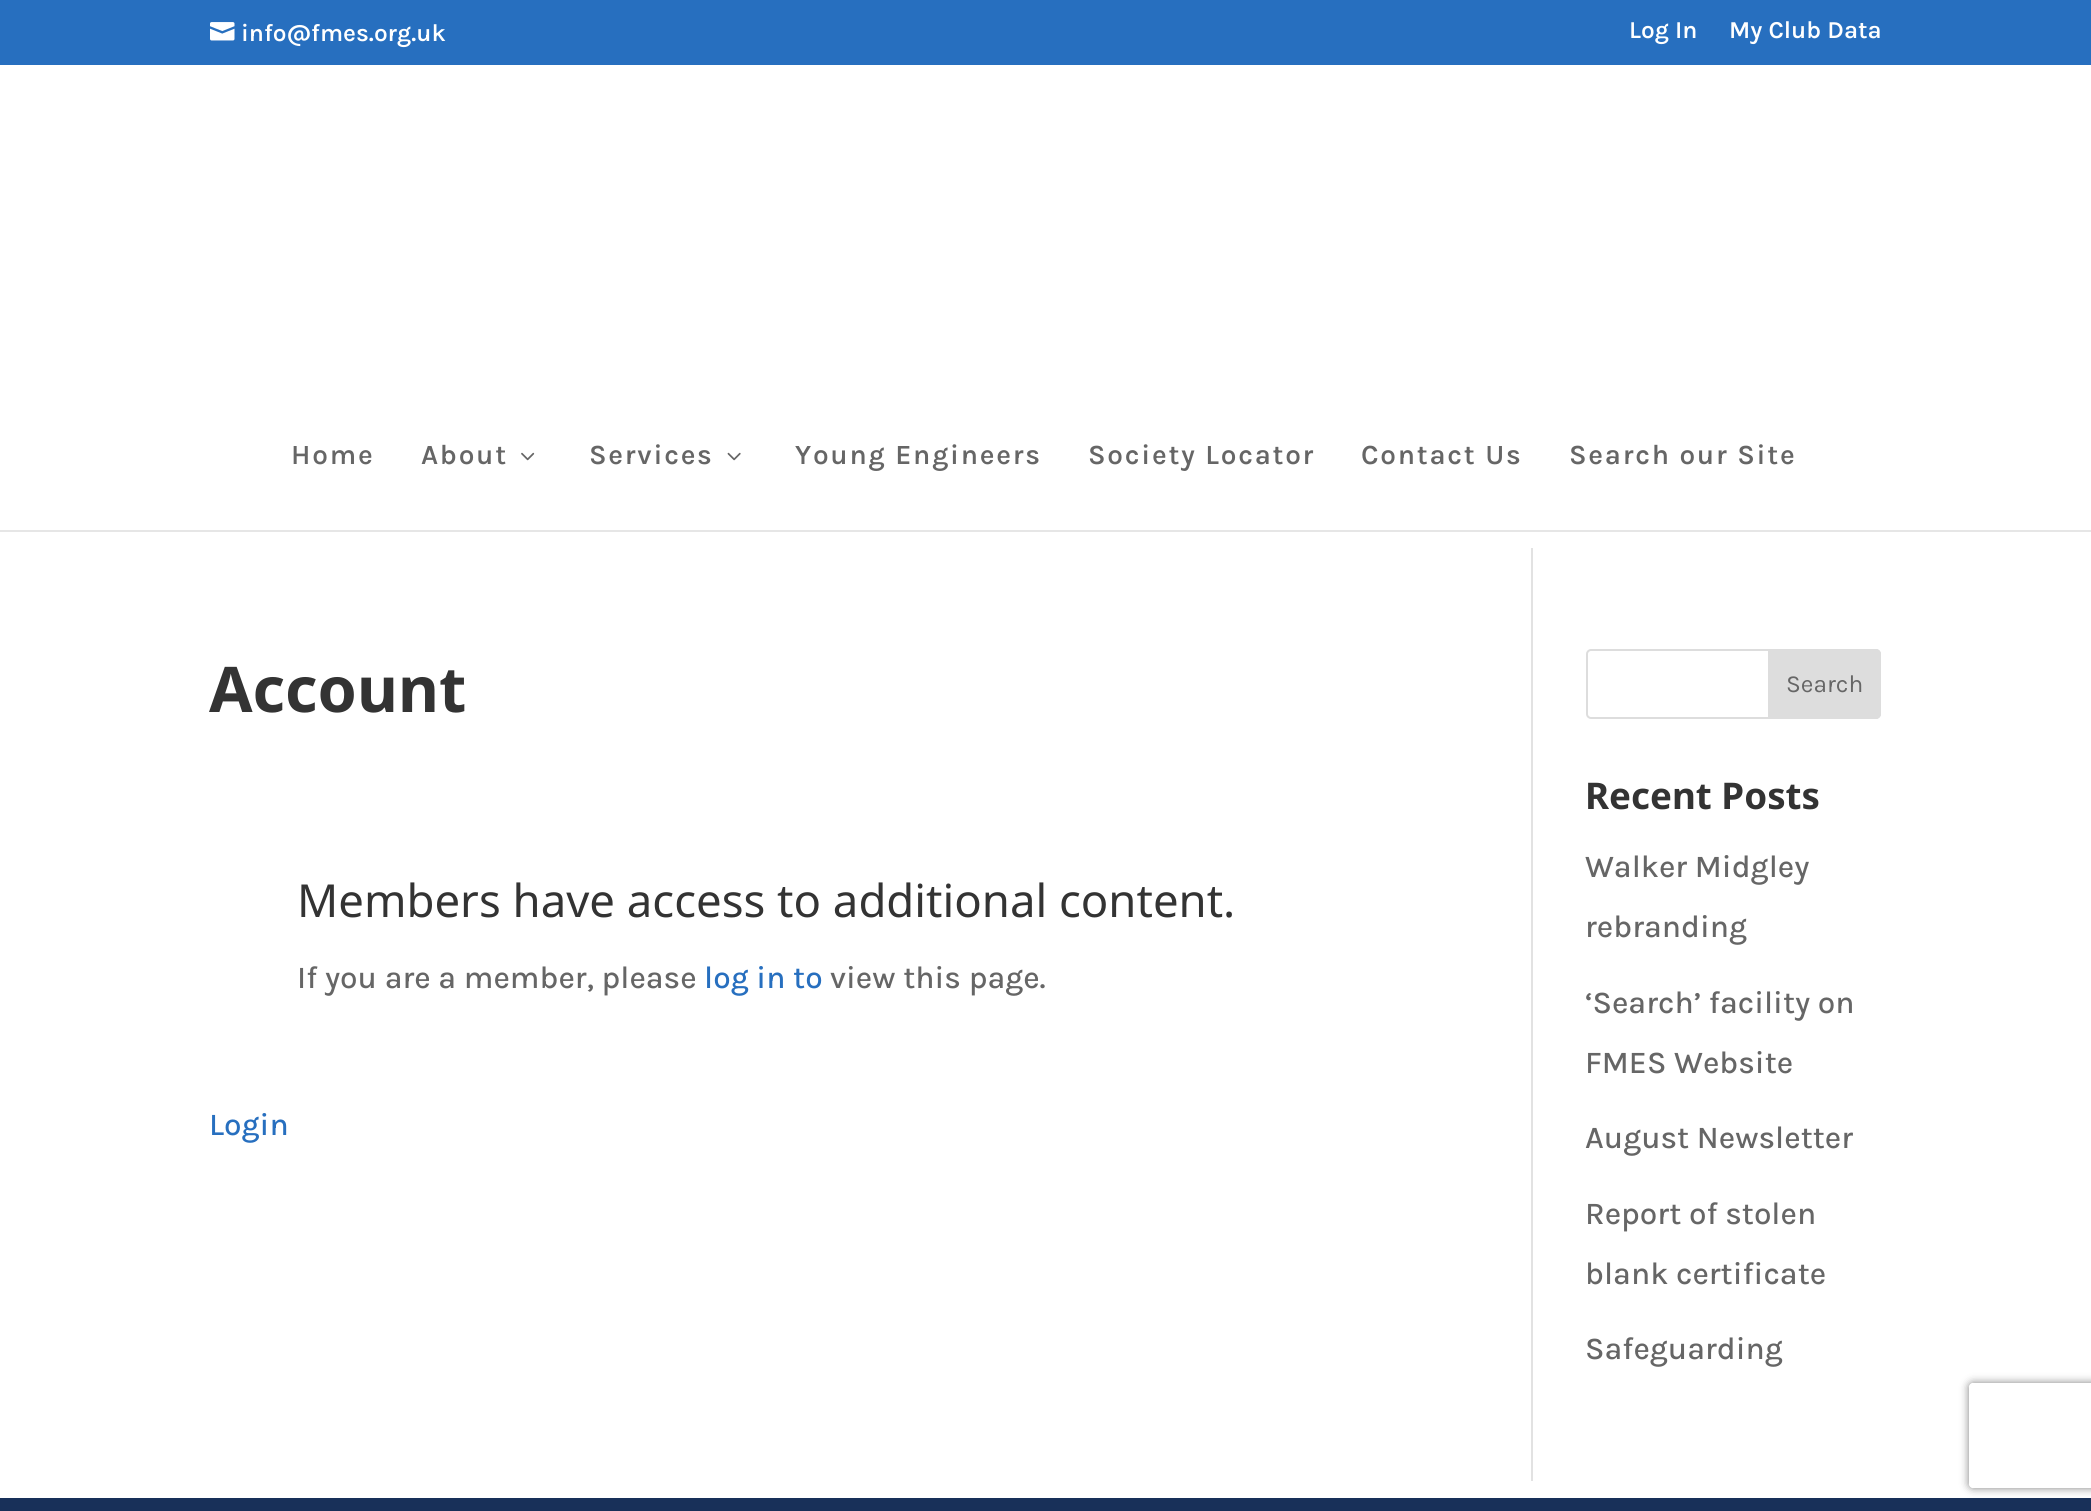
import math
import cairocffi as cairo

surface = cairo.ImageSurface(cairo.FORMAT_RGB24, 2091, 1511)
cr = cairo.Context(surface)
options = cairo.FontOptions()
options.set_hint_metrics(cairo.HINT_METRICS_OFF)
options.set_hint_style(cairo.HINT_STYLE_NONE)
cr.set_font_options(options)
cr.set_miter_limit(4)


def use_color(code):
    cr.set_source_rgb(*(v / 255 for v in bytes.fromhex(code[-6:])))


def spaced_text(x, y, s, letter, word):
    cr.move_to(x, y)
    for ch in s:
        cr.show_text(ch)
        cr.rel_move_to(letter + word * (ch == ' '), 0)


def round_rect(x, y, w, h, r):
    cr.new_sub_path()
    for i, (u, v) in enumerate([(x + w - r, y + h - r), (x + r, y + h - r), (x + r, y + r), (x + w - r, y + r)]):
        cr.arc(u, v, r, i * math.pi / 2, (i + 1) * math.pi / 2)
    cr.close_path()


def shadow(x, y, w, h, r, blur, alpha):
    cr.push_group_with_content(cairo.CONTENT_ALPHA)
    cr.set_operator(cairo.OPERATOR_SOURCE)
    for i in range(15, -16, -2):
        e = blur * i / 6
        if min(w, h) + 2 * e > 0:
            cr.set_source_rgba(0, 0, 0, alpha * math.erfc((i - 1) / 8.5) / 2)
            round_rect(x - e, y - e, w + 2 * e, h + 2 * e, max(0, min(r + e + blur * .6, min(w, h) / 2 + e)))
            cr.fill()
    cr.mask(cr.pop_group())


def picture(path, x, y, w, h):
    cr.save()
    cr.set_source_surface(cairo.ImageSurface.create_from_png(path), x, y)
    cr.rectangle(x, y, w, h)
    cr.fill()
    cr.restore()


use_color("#ffffff")
cr.paint()
use_color("#276fbf")
cr.rectangle(0, 0, 2091, 65)
cr.fill()
picture("img1.png", 210, 22, 25, 19)
cr.select_font_face("Karla SemiBold")
cr.set_font_size(24.5)
use_color("#ffffff")
cr.move_to(241, 41)
cr.show_text("info@fmes.org.uk")
cr.move_to(1629, 38)
cr.show_text("Log In")
cr.move_to(1729, 38)
cr.show_text("My Club Data")
use_color("#e6e6e6")
cr.rectangle(0, 530, 2091, 2)
cr.fill()
cr.set_font_size(28)
use_color("#666666")
spaced_text(291, 464, "Home", 1.75, 0)
spaced_text(421, 464, "About", 1.75, 0)
picture("img2.png", 521, 452, 14, 9)
spaced_text(589, 464, "Services", 1.75, 0)
picture("img3.png", 727, 452, 14, 9)
spaced_text(795, 464, "Young Engineers", 1.75, 0)
spaced_text(1088, 464, "Society Locator", 1.75, 0)
spaced_text(1361, 464, "Contact Us", 1.75, 0)
spaced_text(1569, 464, "Search our Site", 1.75, 0)
use_color("#e2e2e2")
cr.rectangle(1531, 548, 2, 933)
cr.fill()
cr.select_font_face("Noto Sans", cairo.FONT_SLANT_NORMAL, cairo.FONT_WEIGHT_BOLD)
cr.set_font_size(63)
use_color("#333333")
cr.move_to(209, 712)
cr.show_text("Account")
cr.select_font_face("Noto Sans")
cr.set_font_size(45.5)
cr.move_to(297, 917)
cr.show_text("Members have access to additional content.")
cr.select_font_face("Karla Medium")
cr.set_font_size(31.5)
use_color("#666666")
cr.move_to(297, 988)
cr.show_text("If you are a member, please")
use_color("#276fbf")
cr.move_to(704, 988)
cr.show_text("log in to")
use_color("#666666")
cr.move_to(830, 988)
cr.show_text("view this page.")
use_color("#276fbf")
cr.move_to(209, 1135)
cr.show_text("Login")
round_rect(1587, 650, 293, 68, 4)
use_color("#dddddd")
cr.stroke()
cr.new_path()
cr.move_to(1769, 650)
cr.line_to(1876, 650)
cr.curve_to(1878, 650, 1880, 652, 1880, 654)
cr.line_to(1880, 714)
cr.curve_to(1880, 716, 1878, 718, 1876, 718)
cr.line_to(1769, 718)
cr.close_path()
cr.fill_preserve()
cr.stroke()
cr.select_font_face("Karla")
cr.set_font_size(24.5)
use_color("#666666")
cr.move_to(1786, 692)
cr.show_text("Search")
cr.select_font_face("Noto Sans", cairo.FONT_SLANT_NORMAL, cairo.FONT_WEIGHT_BOLD)
cr.set_font_size(36.75)
use_color("#333333")
cr.move_to(1585, 809)
cr.show_text("Recent Posts")
cr.select_font_face("Karla Medium")
cr.set_font_size(31.5)
use_color("#666666")
cr.move_to(1585, 877)
cr.show_text("Walker Midgley")
cr.move_to(1585, 937)
cr.show_text("rebranding")
cr.move_to(1585, 1013)
cr.show_text("‘Search’ facility on")
cr.move_to(1585, 1073)
cr.show_text("FMES Website")
cr.move_to(1585, 1148)
cr.show_text("August Newsletter")
cr.move_to(1585, 1224)
cr.show_text("Report of stolen")
cr.move_to(1585, 1284)
cr.show_text("blank certificate")
cr.move_to(1585, 1359)
cr.show_text("Safeguarding")
cr.save()
cr.set_fill_rule(cairo.FILL_RULE_EVEN_ODD)
cr.new_path()
cr.move_to(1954, 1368)
cr.line_to(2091, 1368)
cr.line_to(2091, 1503)
cr.line_to(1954, 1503)
cr.close_path()
cr.move_to(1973, 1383)
cr.line_to(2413, 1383)
cr.curve_to(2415, 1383, 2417, 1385, 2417, 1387)
cr.line_to(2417, 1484)
cr.curve_to(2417, 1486, 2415, 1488, 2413, 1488)
cr.line_to(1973, 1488)
cr.curve_to(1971, 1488, 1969, 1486, 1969, 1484)
cr.line_to(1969, 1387)
cr.curve_to(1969, 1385, 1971, 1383, 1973, 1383)
cr.close_path()
cr.clip()
use_color("#808080")
shadow(1969, 1383, 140, 105, 4, 4.5, 1)
cr.restore()
use_color("#183059")
cr.rectangle(0, 1498, 2091, 13)
cr.fill()
surface.write_to_png("result.png")
